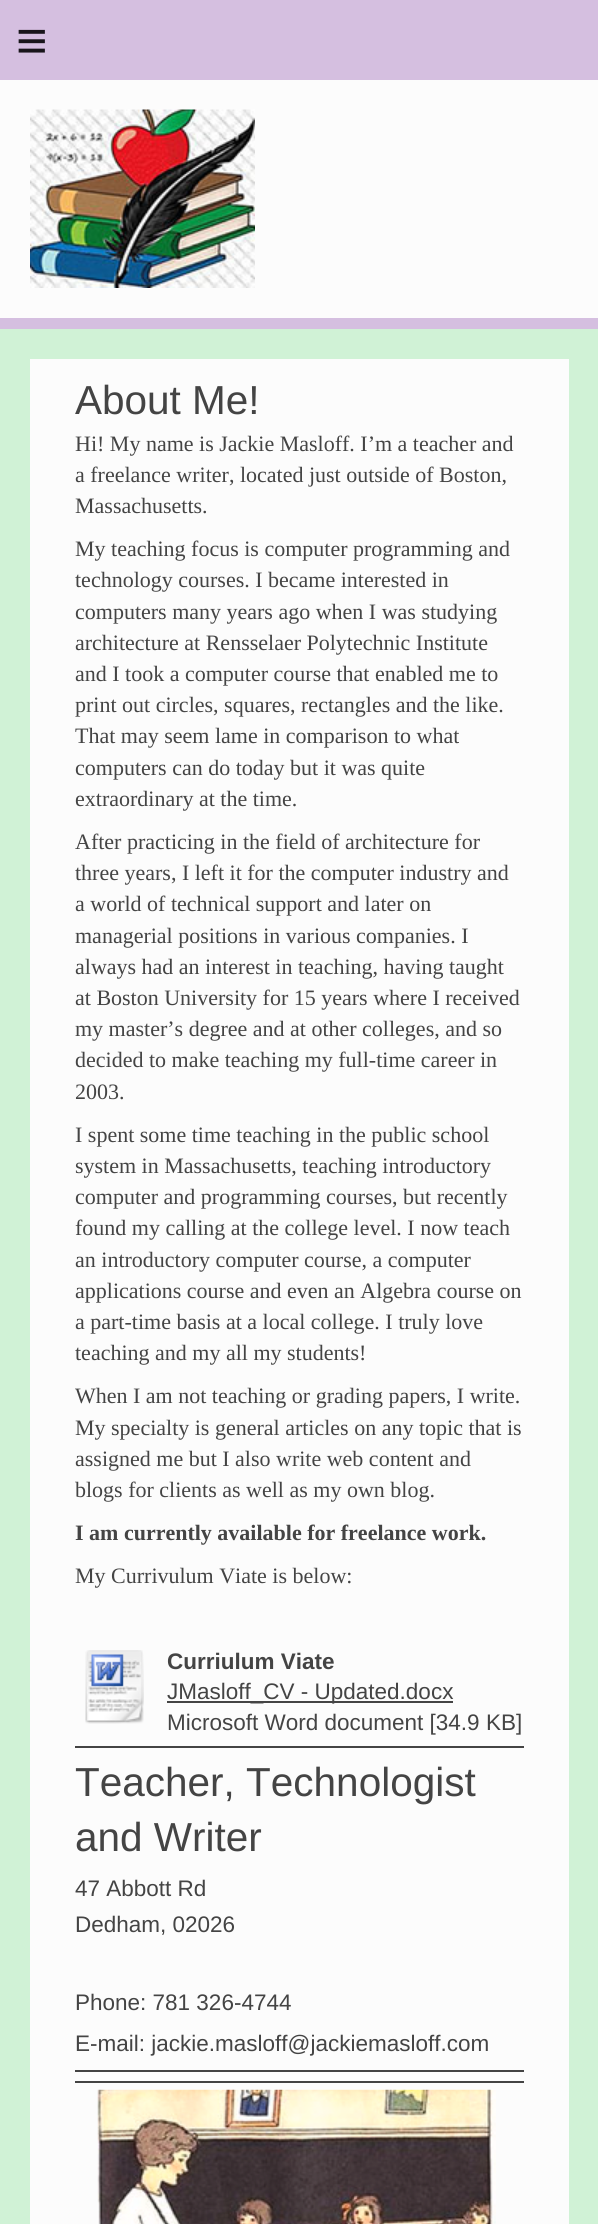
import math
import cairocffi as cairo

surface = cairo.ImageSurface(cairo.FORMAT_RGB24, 598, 2224)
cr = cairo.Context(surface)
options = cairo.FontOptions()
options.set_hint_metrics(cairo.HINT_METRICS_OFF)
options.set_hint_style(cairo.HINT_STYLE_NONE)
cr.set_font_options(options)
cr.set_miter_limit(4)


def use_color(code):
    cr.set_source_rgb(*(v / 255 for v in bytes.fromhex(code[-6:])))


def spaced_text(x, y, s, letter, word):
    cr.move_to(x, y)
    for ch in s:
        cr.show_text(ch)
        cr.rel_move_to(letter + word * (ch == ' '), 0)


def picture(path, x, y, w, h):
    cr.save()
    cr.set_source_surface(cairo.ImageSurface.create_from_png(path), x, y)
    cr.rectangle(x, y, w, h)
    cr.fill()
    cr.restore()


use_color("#d0f2d6")
cr.paint()
use_color("#d5bfe0")
cr.rectangle(0, 0, 598, 80)
cr.fill()
cr.select_font_face("Liberation Sans")
cr.set_font_size(54)
use_color("#19151b")
spaced_text(16, 59, "≡", 16, 0)
use_color("#fcfcfc")
cr.rectangle(0, 80, 598, 238)
cr.fill()
use_color("#d5bfe0")
cr.rectangle(0, 318, 598, 11)
cr.fill()
picture("img1.png", 30, 109, 225, 179)
use_color("#fcfcfc")
cr.rectangle(30, 359, 539, 1865)
cr.fill()
cr.set_font_size(40.5)
use_color("#444444")
cr.move_to(75, 414)
cr.show_text("About Me!")
cr.select_font_face("Liberation Serif")
cr.set_font_size(22)
cr.move_to(75, 451)
cr.show_text("Hi! My name is Jackie Masloff. I’m a teacher and")
cr.move_to(75, 482)
cr.show_text("a freelance writer, located just outside of Boston,")
cr.move_to(75, 513)
cr.show_text("Massachusetts.")
cr.move_to(75, 556)
cr.show_text("My teaching focus is computer programming and")
cr.move_to(75, 587)
cr.show_text("technology courses. I became interested in")
cr.move_to(75, 619)
cr.show_text("computers many years ago when I was studying")
cr.move_to(75, 650)
cr.show_text("architecture at Rensselaer Polytechnic Institute")
cr.move_to(75, 681)
cr.show_text("and I took a computer course that enabled me to")
cr.move_to(75, 712)
cr.show_text("print out circles, squares, rectangles and the like.")
cr.move_to(75, 743)
cr.show_text("That may seem lame in comparison to what")
cr.move_to(75, 775)
cr.show_text("computers can do today but it was quite")
cr.move_to(75, 806)
cr.show_text("extraordinary at the time.")
cr.move_to(75, 849)
cr.show_text("After practicing in the field of architecture for")
cr.move_to(75, 880)
cr.show_text("three years, I left it for the computer industry and")
cr.move_to(75, 911)
cr.show_text("a world of technical support and later on")
cr.move_to(75, 943)
cr.show_text("managerial positions in various companies. I")
cr.move_to(75, 974)
cr.show_text("always had an interest in teaching, having taught")
cr.move_to(75, 1005)
cr.show_text("at Boston University for 15 years where I received")
cr.move_to(75, 1036)
cr.show_text("my master’s degree and at other colleges, and so")
cr.move_to(75, 1067)
cr.show_text("decided to make teaching my full-time career in")
cr.move_to(75, 1099)
cr.show_text("2003.")
cr.move_to(75, 1142)
cr.show_text("I spent some time teaching in the public school")
cr.move_to(75, 1173)
cr.show_text("system in Massachusetts, teaching introductory")
cr.move_to(75, 1204)
cr.show_text("computer and programming courses, but recently")
cr.move_to(75, 1235)
cr.show_text("found my calling at the college level. I now teach")
cr.move_to(75, 1267)
cr.show_text("an introductory computer course, a computer")
cr.move_to(75, 1298)
cr.show_text("applications course and even an Algebra course on")
cr.move_to(75, 1329)
cr.show_text("a part-time basis at a local college. I truly love")
cr.move_to(75, 1360)
cr.show_text("teaching and my all my students!")
cr.move_to(75, 1403)
cr.show_text("When I am not teaching or grading papers, I write.")
cr.move_to(75, 1435)
cr.show_text("My specialty is general articles on any topic that is")
cr.move_to(75, 1466)
cr.show_text("assigned me but I also write web content and")
cr.move_to(75, 1497)
cr.show_text("blogs for clients as well as my own blog.")
cr.select_font_face("Liberation Serif", cairo.FONT_SLANT_NORMAL, cairo.FONT_WEIGHT_BOLD)
cr.move_to(75, 1540)
cr.show_text("I am currently available for freelance work.")
cr.select_font_face("Liberation Serif")
cr.move_to(75, 1583)
cr.show_text("My Currivulum Viate is below:")
picture("img2.png", 85, 1650, 59, 74)
cr.select_font_face("Liberation Sans", cairo.FONT_SLANT_NORMAL, cairo.FONT_WEIGHT_BOLD)
cr.set_font_size(22.5)
cr.move_to(167, 1669)
cr.show_text("Curriulum Viate")
cr.rectangle(167, 1701, 286, 2)
cr.fill()
cr.select_font_face("Liberation Sans")
cr.move_to(167, 1699)
cr.show_text("JMasloff_CV - Updated.docx")
cr.move_to(167, 1730)
cr.show_text("Microsoft Word document [34.9 KB]")
cr.rectangle(75, 1746, 449, 2)
cr.fill()
cr.set_font_size(40.5)
cr.move_to(75, 1796)
cr.show_text("Teacher, Technologist")
cr.move_to(75, 1851)
cr.show_text("and Writer")
cr.set_font_size(22.5)
cr.move_to(75, 1896)
cr.show_text("47 Abbott Rd")
cr.move_to(75, 1932)
cr.show_text("Dedham, 02026")
cr.move_to(75, 2010)
cr.show_text("Phone: 781 326-4744")
cr.move_to(75, 2051)
cr.show_text("E-mail: jackie.masloff@jackiemasloff.com")
cr.rectangle(75, 2070, 449, 2)
cr.fill()
cr.rectangle(75, 2081, 449, 2)
cr.fill()
picture("img3.png", 97, 2089, 399, 135)
surface.write_to_png("result.png")
